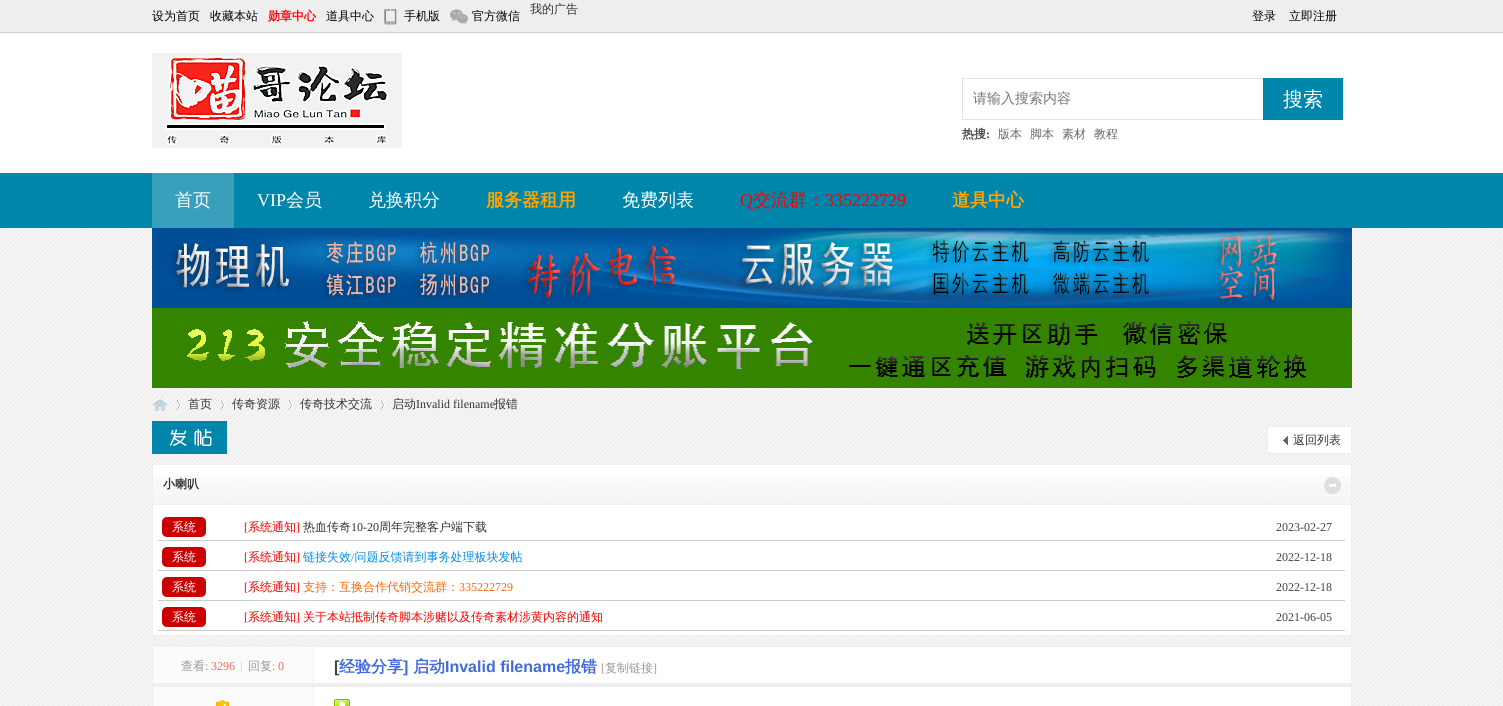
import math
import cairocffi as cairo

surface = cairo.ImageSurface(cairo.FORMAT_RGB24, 1503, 706)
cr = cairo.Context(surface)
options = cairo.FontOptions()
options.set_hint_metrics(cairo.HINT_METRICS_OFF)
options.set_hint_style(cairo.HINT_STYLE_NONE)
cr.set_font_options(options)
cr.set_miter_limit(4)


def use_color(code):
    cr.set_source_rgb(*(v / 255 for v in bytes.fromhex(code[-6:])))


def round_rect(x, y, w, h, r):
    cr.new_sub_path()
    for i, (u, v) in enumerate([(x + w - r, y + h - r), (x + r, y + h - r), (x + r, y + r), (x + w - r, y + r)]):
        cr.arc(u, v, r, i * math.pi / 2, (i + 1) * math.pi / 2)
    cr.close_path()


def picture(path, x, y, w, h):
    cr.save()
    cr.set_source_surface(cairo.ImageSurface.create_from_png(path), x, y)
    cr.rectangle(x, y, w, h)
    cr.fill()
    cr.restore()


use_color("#ffffff")
cr.paint()
picture("img1.png", 0, 228, 1503, 478)
use_color("#eeeeee")
cr.rectangle(0, 0, 1503, 32)
cr.fill()
use_color("#d0d0d0")
cr.rectangle(0, 32, 1503, 1)
cr.fill()
cr.select_font_face("WenQuanYi Zen Hei Medium")
cr.set_font_size(12)
use_color("#000000")
cr.move_to(152, 20)
cr.show_text("设为首页")
cr.move_to(210, 20)
cr.show_text("收藏本站")
cr.select_font_face("WenQuanYi Zen Hei", cairo.FONT_SLANT_NORMAL, cairo.FONT_WEIGHT_BOLD)
use_color("#ff0000")
cr.move_to(268, 20)
cr.show_text("勋章中心")
cr.select_font_face("WenQuanYi Zen Hei Medium")
use_color("#000000")
cr.move_to(326, 20)
cr.show_text("道具中心")
picture("img2.png", 384, 9, 13, 16)
cr.move_to(404, 20)
cr.show_text("手机版")
picture("img3.png", 450, 9, 19, 15)
cr.move_to(472, 20)
cr.show_text("官方微信")
use_color("#333333")
cr.move_to(530, 13)
cr.show_text("我的广告")
use_color("#000000")
cr.move_to(1252, 20)
cr.show_text("登录")
cr.move_to(1289, 20)
cr.show_text("立即注册")
picture("img4.png", 152, 53, 250, 95)
use_color("#e2e2e2")
cr.rectangle(962, 78, 301, 1)
cr.fill()
cr.rectangle(962, 119, 301, 1)
cr.fill()
cr.rectangle(962, 78, 1, 42)
cr.fill()
cr.set_font_size(14)
use_color("#757575")
cr.move_to(973, 103)
cr.show_text("请输入搜索内容")
use_color("#0085ab")
cr.rectangle(1263, 78, 80, 42)
cr.fill()
cr.set_font_size(20)
use_color("#ffffff")
cr.move_to(1283, 106)
cr.show_text("搜索")
cr.select_font_face("WenQuanYi Zen Hei", cairo.FONT_SLANT_NORMAL, cairo.FONT_WEIGHT_BOLD)
cr.set_font_size(12)
use_color("#444444")
cr.move_to(962, 138)
cr.show_text("热搜")
cr.select_font_face("Liberation Serif", cairo.FONT_SLANT_NORMAL, cairo.FONT_WEIGHT_BOLD)
cr.move_to(986, 138)
cr.show_text(":")
cr.select_font_face("WenQuanYi Zen Hei Medium")
use_color("#666666")
cr.move_to(998, 138)
cr.show_text("版本")
cr.move_to(1030, 138)
cr.show_text("脚本")
cr.move_to(1062, 138)
cr.show_text("素材")
cr.move_to(1094, 138)
cr.show_text("教程")
use_color("#0085ab")
cr.rectangle(0, 173, 1503, 55)
cr.fill()
use_color("#3a9fbb")
cr.rectangle(152, 173, 82, 55)
cr.fill()
cr.set_font_size(18)
use_color("#ffffff")
cr.move_to(175, 206)
cr.show_text("首页")
cr.select_font_face("Liberation Serif")
cr.move_to(257, 206)
cr.show_text("VIP")
cr.select_font_face("WenQuanYi Zen Hei Medium")
cr.move_to(286, 206)
cr.show_text("会员")
cr.move_to(368, 206)
cr.show_text("兑换积分")
cr.select_font_face("WenQuanYi Zen Hei", cairo.FONT_SLANT_NORMAL, cairo.FONT_WEIGHT_BOLD)
use_color("#ffa500")
cr.move_to(486, 206)
cr.show_text("服务器租用")
cr.select_font_face("WenQuanYi Zen Hei Medium")
use_color("#ffffff")
cr.move_to(622, 206)
cr.show_text("免费列表")
cr.select_font_face("Liberation Serif")
use_color("#ff0000")
cr.move_to(740, 206)
cr.show_text("Q")
cr.select_font_face("WenQuanYi Zen Hei Medium")
cr.move_to(753, 206)
cr.show_text("交流群：")
cr.select_font_face("Liberation Serif")
cr.move_to(825, 206)
cr.show_text("335222729")
cr.select_font_face("WenQuanYi Zen Hei", cairo.FONT_SLANT_NORMAL, cairo.FONT_WEIGHT_BOLD)
use_color("#ffa500")
cr.move_to(952, 206)
cr.show_text("道具中心")
picture("img5.png", 152, 228, 1200, 80)
picture("img6.png", 152, 308, 1200, 80)
picture("img7.png", 152, 399, 16, 12)
picture("img8.png", 177, 400, 4, 10)
cr.select_font_face("WenQuanYi Zen Hei Medium")
cr.set_font_size(12)
use_color("#333333")
cr.move_to(188, 408)
cr.show_text("首页")
picture("img9.png", 221, 400, 4, 10)
cr.move_to(232, 408)
cr.show_text("传奇资源")
picture("img10.png", 289, 400, 4, 10)
cr.move_to(300, 408)
cr.show_text("传奇技术交流")
picture("img9.png", 381, 400, 4, 10)
cr.move_to(392, 408)
cr.show_text("启动")
cr.select_font_face("Liberation Serif")
cr.move_to(416, 408)
cr.show_text("Invalid filename")
cr.select_font_face("WenQuanYi Zen Hei Medium")
cr.move_to(494, 408)
cr.show_text("报错")
picture("img11.png", 152, 421, 75, 33)
use_color("#ffffff")
cr.rectangle(1268, 427, 83, 26)
cr.fill()
picture("img12.png", 1283, 436, 5, 9)
cr.rectangle(1267.5, 426.5, 84, 27)
use_color("#efefef")
cr.set_line_width(1)
cr.stroke()
use_color("#333333")
cr.move_to(1293, 444)
cr.show_text("返回列表")
use_color("#ffffff")
cr.rectangle(153, 465, 1198, 170)
cr.fill()
use_color("#efefef")
cr.rectangle(1351, 464, 1, 172)
cr.fill()
cr.rectangle(152, 635, 1200, 1)
cr.fill()
cr.rectangle(152, 464, 1, 172)
cr.fill()
picture("img13.png", 153, 476, 1198, 28)
cr.rectangle(153, 464, 1198, 1)
cr.fill()
cr.rectangle(153, 504, 1198, 1)
cr.fill()
cr.select_font_face("WenQuanYi Zen Hei", cairo.FONT_SLANT_NORMAL, cairo.FONT_WEIGHT_BOLD)
use_color("#333333")
cr.move_to(163, 488)
cr.show_text("小喇叭")
picture("img14.png", 1324, 477, 17, 17)
use_color("#cccccc")
cr.rectangle(158, 540, 1187, 1)
cr.fill()
use_color("#cb0000")
round_rect(162, 517, 44, 20, 5)
cr.fill()
cr.select_font_face("WenQuanYi Zen Hei Medium")
use_color("#ffffff")
cr.move_to(172, 531)
cr.show_text("系统")
cr.select_font_face("Liberation Serif")
use_color("#ff0000")
cr.move_to(244, 531)
cr.show_text("[")
cr.select_font_face("WenQuanYi Zen Hei Medium")
cr.move_to(248, 531)
cr.show_text("系统通知")
cr.select_font_face("Liberation Serif")
cr.move_to(296, 531)
cr.show_text("]")
cr.select_font_face("WenQuanYi Zen Hei Medium")
use_color("#333333")
cr.move_to(303, 531)
cr.show_text("热血传奇")
cr.select_font_face("Liberation Serif")
cr.move_to(351, 531)
cr.show_text("10-20")
cr.select_font_face("WenQuanYi Zen Hei Medium")
cr.move_to(379, 531)
cr.show_text("周年完整客户端下载")
cr.select_font_face("Liberation Serif")
use_color("#444444")
cr.move_to(1276, 531)
cr.show_text("2023-02-27")
use_color("#cccccc")
cr.rectangle(158, 570, 1187, 1)
cr.fill()
use_color("#cb0000")
round_rect(162, 547, 44, 20, 5)
cr.fill()
cr.select_font_face("WenQuanYi Zen Hei Medium")
use_color("#ffffff")
cr.move_to(172, 561)
cr.show_text("系统")
cr.select_font_face("Liberation Serif")
use_color("#ff0000")
cr.move_to(244, 561)
cr.show_text("[")
cr.select_font_face("WenQuanYi Zen Hei Medium")
cr.move_to(248, 561)
cr.show_text("系统通知")
cr.select_font_face("Liberation Serif")
cr.move_to(296, 561)
cr.show_text("]")
cr.select_font_face("WenQuanYi Zen Hei Medium")
use_color("#008ce5")
cr.move_to(303, 561)
cr.show_text("链接失效 问题反馈请到事务处理板块发帖")
cr.select_font_face("Liberation Serif")
cr.move_to(351, 561)
cr.show_text("/")
use_color("#444444")
cr.move_to(1276, 561)
cr.show_text("2022-12-18")
use_color("#cccccc")
cr.rectangle(158, 600, 1187, 1)
cr.fill()
use_color("#cb0000")
round_rect(162, 577, 44, 20, 5)
cr.fill()
cr.select_font_face("WenQuanYi Zen Hei Medium")
use_color("#ffffff")
cr.move_to(172, 591)
cr.show_text("系统")
cr.select_font_face("Liberation Serif")
use_color("#ff0000")
cr.move_to(244, 591)
cr.show_text("[")
cr.select_font_face("WenQuanYi Zen Hei Medium")
cr.move_to(248, 591)
cr.show_text("系统通知")
cr.select_font_face("Liberation Serif")
cr.move_to(296, 591)
cr.show_text("]")
cr.select_font_face("WenQuanYi Zen Hei Medium")
use_color("#ff6600")
cr.move_to(303, 591)
cr.show_text("支持：互换合作代销交流群：")
cr.select_font_face("Liberation Serif")
cr.move_to(459, 591)
cr.show_text("335222729")
use_color("#444444")
cr.move_to(1276, 591)
cr.show_text("2022-12-18")
use_color("#cccccc")
cr.rectangle(158, 630, 1187, 1)
cr.fill()
use_color("#cb0000")
round_rect(162, 607, 44, 20, 5)
cr.fill()
cr.select_font_face("WenQuanYi Zen Hei Medium")
use_color("#ffffff")
cr.move_to(172, 621)
cr.show_text("系统")
cr.select_font_face("Liberation Serif")
use_color("#ff0000")
cr.move_to(244, 621)
cr.show_text("[")
cr.select_font_face("WenQuanYi Zen Hei Medium")
cr.move_to(248, 621)
cr.show_text("系统通知")
cr.select_font_face("Liberation Serif")
cr.move_to(296, 621)
cr.show_text("]")
cr.select_font_face("WenQuanYi Zen Hei Medium")
cr.move_to(303, 621)
cr.show_text("关于本站抵制传奇脚本涉赌以及传奇素材涉黄内容的通知")
cr.select_font_face("Liberation Serif")
use_color("#444444")
cr.move_to(1276, 621)
cr.show_text("2021-06-05")
use_color("#ffffff")
cr.rectangle(314, 647, 1037, 59)
cr.fill()
cr.rectangle(152.5, 646.5, 1199, 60)
use_color("#efefef")
cr.stroke()
cr.rectangle(313, 646, 1, 37)
cr.fill()
use_color("#fbfbfb")
cr.rectangle(153, 647, 160, 36)
cr.fill()
cr.select_font_face("WenQuanYi Zen Hei Medium")
use_color("#999999")
cr.move_to(181, 670)
cr.show_text("查看")
cr.select_font_face("Liberation Serif")
cr.move_to(205, 670)
cr.show_text(":")
use_color("#f26c4f")
cr.move_to(211, 670)
cr.show_text("3296")
use_color("#cccccc")
cr.move_to(240, 670)
cr.show_text("|")
cr.select_font_face("WenQuanYi Zen Hei Medium")
use_color("#999999")
cr.move_to(248, 670)
cr.show_text("回复")
cr.select_font_face("Liberation Serif")
cr.move_to(272, 670)
cr.show_text(":")
use_color("#f26c4f")
cr.move_to(278, 670)
cr.show_text("0")
cr.select_font_face("Liberation Sans", cairo.FONT_SLANT_NORMAL, cairo.FONT_WEIGHT_BOLD)
cr.set_font_size(16)
use_color("#444444")
cr.move_to(334, 672)
cr.show_text("[")
cr.select_font_face("WenQuanYi Zen Hei", cairo.FONT_SLANT_NORMAL, cairo.FONT_WEIGHT_BOLD)
use_color("#4169e1")
cr.move_to(339, 672)
cr.show_text("经验分享")
cr.select_font_face("Liberation Sans", cairo.FONT_SLANT_NORMAL, cairo.FONT_WEIGHT_BOLD)
cr.move_to(403, 672)
cr.show_text("]")
cr.select_font_face("WenQuanYi Zen Hei", cairo.FONT_SLANT_NORMAL, cairo.FONT_WEIGHT_BOLD)
cr.move_to(413, 672)
cr.show_text("启动")
cr.select_font_face("Liberation Sans", cairo.FONT_SLANT_NORMAL, cairo.FONT_WEIGHT_BOLD)
cr.move_to(445, 672)
cr.show_text("Invalid filename")
cr.select_font_face("WenQuanYi Zen Hei", cairo.FONT_SLANT_NORMAL, cairo.FONT_WEIGHT_BOLD)
cr.move_to(565, 672)
cr.show_text("报错")
cr.select_font_face("Liberation Serif")
cr.set_font_size(12)
use_color("#999999")
cr.move_to(601, 672)
cr.show_text("[")
cr.select_font_face("WenQuanYi Zen Hei Medium")
cr.move_to(605, 672)
cr.show_text("复制链接")
cr.select_font_face("Liberation Serif")
cr.move_to(653, 672)
cr.show_text("]")
use_color("#efefef")
cr.rectangle(313, 686, 1, 20)
cr.fill()
cr.rectangle(153, 683, 1198, 4)
cr.fill()
use_color("#fbfbfb")
cr.rectangle(153, 687, 160, 19)
cr.fill()
picture("img15.png", 216, 700, 13, 6)
picture("img16.png", 334, 699, 16, 7)
surface.write_to_png("result.png")
